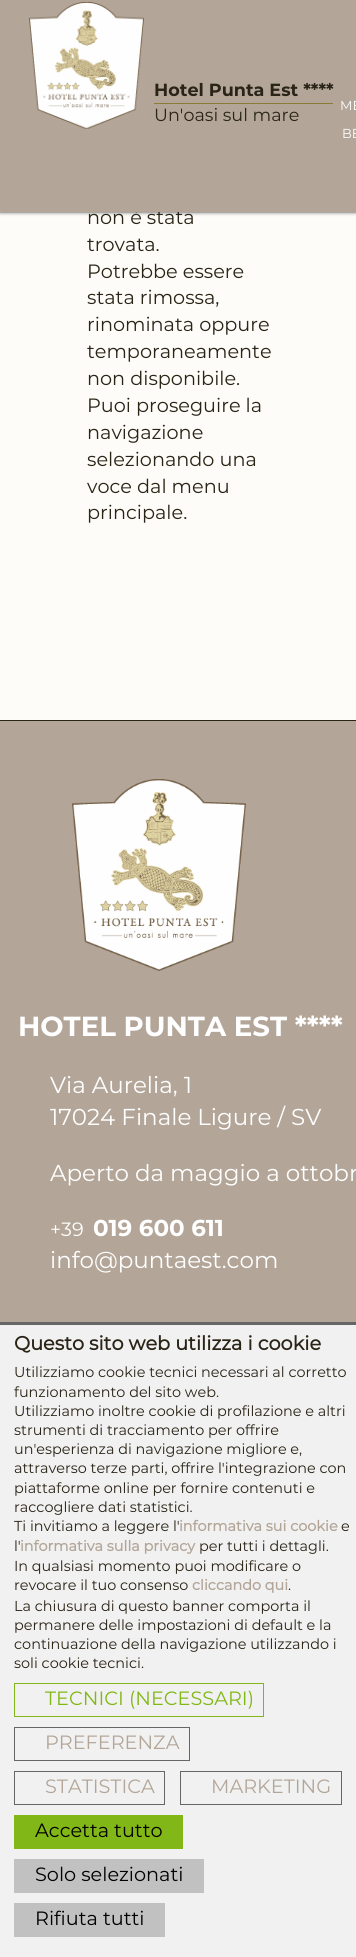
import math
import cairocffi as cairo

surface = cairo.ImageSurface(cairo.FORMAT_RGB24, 356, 1957)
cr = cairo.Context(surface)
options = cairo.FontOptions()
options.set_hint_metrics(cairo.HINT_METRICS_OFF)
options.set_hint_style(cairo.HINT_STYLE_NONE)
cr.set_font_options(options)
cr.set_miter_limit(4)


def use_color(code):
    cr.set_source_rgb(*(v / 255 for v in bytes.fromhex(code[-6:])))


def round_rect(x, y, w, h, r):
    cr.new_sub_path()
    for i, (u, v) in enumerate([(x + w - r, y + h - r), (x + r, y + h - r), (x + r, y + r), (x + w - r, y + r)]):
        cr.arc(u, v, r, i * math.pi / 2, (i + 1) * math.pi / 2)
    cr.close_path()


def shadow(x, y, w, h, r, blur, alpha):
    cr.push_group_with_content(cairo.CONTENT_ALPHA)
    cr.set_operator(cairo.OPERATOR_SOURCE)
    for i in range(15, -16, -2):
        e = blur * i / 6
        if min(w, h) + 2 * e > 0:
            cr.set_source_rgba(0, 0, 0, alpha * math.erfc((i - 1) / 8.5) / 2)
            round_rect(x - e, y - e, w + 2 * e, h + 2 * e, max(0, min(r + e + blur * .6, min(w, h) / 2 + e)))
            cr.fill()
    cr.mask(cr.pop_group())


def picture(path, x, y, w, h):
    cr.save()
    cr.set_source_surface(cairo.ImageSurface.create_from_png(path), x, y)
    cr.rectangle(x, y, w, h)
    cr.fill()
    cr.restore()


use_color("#fefcf8")
cr.paint()
use_color("#333333")
shadow(0, 0, 356, 212, 0, 2, 1)
cr.select_font_face("Montserrat")
cr.set_font_size(19.25)
use_color("#2a2417")
cr.move_to(87, 224)
cr.show_text("non è stata")
use_color("#b3a699")
cr.rectangle(0, 0, 356, 212)
cr.fill()
picture("img1.png", 29, 2, 115, 127)
cr.select_font_face("Montserrat", cairo.FONT_SLANT_NORMAL, cairo.FONT_WEIGHT_BOLD)
cr.set_font_size(17.6)
use_color("#2a2417")
cr.move_to(154, 96)
cr.show_text("Hotel Punta Est ****")
use_color("#8b7b37")
cr.rectangle(154, 103, 179, 1)
cr.fill()
cr.select_font_face("Montserrat")
use_color("#2a2417")
cr.move_to(154, 121)
cr.show_text("Un'oasi sul mare")
cr.set_font_size(13)
use_color("#ffffff")
cr.move_to(340, 110)
cr.show_text("ME")
cr.move_to(342, 138)
cr.show_text("BE")
cr.set_font_size(19.25)
use_color("#2a2417")
cr.move_to(87, 251)
cr.show_text("trovata.")
cr.move_to(87, 278)
cr.show_text("Potrebbe essere")
cr.move_to(87, 304)
cr.show_text("stata rimossa,")
cr.move_to(87, 331)
cr.show_text("rinominata oppure")
cr.move_to(87, 358)
cr.show_text("temporaneamente")
cr.move_to(87, 385)
cr.show_text("non disponibile.")
cr.move_to(87, 412)
cr.show_text("Puoi proseguire la")
cr.move_to(87, 439)
cr.show_text("navigazione")
cr.move_to(87, 466)
cr.show_text("selezionando una")
cr.move_to(87, 493)
cr.show_text("voce dal menu")
cr.move_to(87, 519)
cr.show_text("principale.")
use_color("#b3a699")
cr.rectangle(0, 721, 356, 601)
cr.fill()
use_color("#2a2417")
cr.rectangle(0, 720, 356, 1)
cr.fill()
picture("img2.png", 72, 779, 174, 192)
cr.select_font_face("Montserrat", cairo.FONT_SLANT_NORMAL, cairo.FONT_WEIGHT_BOLD)
cr.set_font_size(27.6)
use_color("#ffffff")
cr.move_to(18, 1036)
cr.show_text("HOTEL PUNTA EST ****")
cr.select_font_face("Montserrat")
cr.set_font_size(23)
cr.move_to(50, 1093)
cr.show_text("Via Aurelia, 1")
cr.move_to(50, 1125)
cr.show_text("17024 Finale Ligure / SV")
cr.move_to(50, 1181)
cr.show_text("Aperto da maggio a ottobr")
cr.set_font_size(19.25)
cr.move_to(50, 1236)
cr.show_text("+39")
cr.select_font_face("Montserrat", cairo.FONT_SLANT_NORMAL, cairo.FONT_WEIGHT_BOLD)
cr.set_font_size(23)
cr.move_to(93, 1236)
cr.show_text("019 600 611")
cr.select_font_face("Montserrat")
cr.move_to(50, 1268)
cr.show_text("info@puntaest.com")
use_color("#f1f1f1")
cr.rectangle(0, 1325, 356, 632)
cr.fill()
use_color("#666666")
cr.rectangle(0, 1322, 356, 3)
cr.fill()
cr.select_font_face("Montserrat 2", cairo.FONT_SLANT_NORMAL, cairo.FONT_WEIGHT_BOLD)
cr.set_font_size(19.25)
use_color("#2a2417")
cr.move_to(14, 1350)
cr.show_text("Questo sito web utilizza i cookie")
cr.select_font_face("Montserrat")
cr.set_font_size(14.4)
cr.move_to(14, 1377)
cr.show_text("Utilizziamo cookie tecnici necessari al corretto")
cr.move_to(14, 1397)
cr.show_text("funzionamento del sito web.")
cr.move_to(14, 1416)
cr.show_text("Utilizziamo inoltre cookie di profilazione e altri")
cr.move_to(14, 1435)
cr.show_text("strumenti di tracciamento per offrire")
cr.move_to(14, 1454)
cr.show_text("un'esperienza di navigazione migliore e,")
cr.move_to(14, 1473)
cr.show_text("attraverso terze parti, offrire l'integrazione con")
cr.move_to(14, 1493)
cr.show_text("piattaforme online per fornire contenuti e")
cr.move_to(14, 1512)
cr.show_text("raccogliere dati statistici.")
cr.move_to(14, 1531)
cr.show_text("Ti invitiamo a leggere l'")
cr.select_font_face("Montserrat 2", cairo.FONT_SLANT_NORMAL, cairo.FONT_WEIGHT_BOLD)
use_color("#b3a699")
cr.move_to(179, 1531)
cr.show_text("informativa sui cookie")
cr.select_font_face("Montserrat")
use_color("#2a2417")
cr.move_to(341, 1531)
cr.show_text("e")
cr.move_to(14, 1551)
cr.show_text("l'")
cr.select_font_face("Montserrat 2", cairo.FONT_SLANT_NORMAL, cairo.FONT_WEIGHT_BOLD)
use_color("#b3a699")
cr.move_to(20, 1551)
cr.show_text("informativa sulla privacy")
cr.select_font_face("Montserrat")
use_color("#2a2417")
cr.move_to(199, 1551)
cr.show_text("per tutti i dettagli.")
cr.move_to(14, 1571)
cr.show_text("In qualsiasi momento puoi modificare o")
cr.move_to(14, 1590)
cr.show_text("revocare il tuo consenso")
cr.select_font_face("Montserrat 2", cairo.FONT_SLANT_NORMAL, cairo.FONT_WEIGHT_BOLD)
use_color("#b3a699")
cr.move_to(192, 1590)
cr.show_text("cliccando qui")
cr.select_font_face("Montserrat")
use_color("#2a2417")
cr.move_to(288, 1590)
cr.show_text(".")
cr.move_to(14, 1611)
cr.show_text("La chiusura di questo banner comporta il")
cr.move_to(14, 1630)
cr.show_text("permanere delle impostazioni di default e la")
cr.move_to(14, 1649)
cr.show_text("continuazione della navigazione utilizzando i")
cr.move_to(14, 1668)
cr.show_text("soli cookie tecnici.")
cr.rectangle(14.5, 1683.5, 249, 33)
use_color("#81b716")
cr.set_line_width(1)
cr.stroke()
cr.set_font_size(19.25)
cr.move_to(45, 1705)
cr.show_text("TECNICI (NECESSARI)")
cr.rectangle(14.5, 1727.5, 175, 33)
use_color("#666666")
cr.stroke()
use_color("#b3a699")
cr.move_to(45, 1749)
cr.show_text("PREFERENZA")
cr.rectangle(14.5, 1771.5, 150, 33)
use_color("#666666")
cr.stroke()
use_color("#b3a699")
cr.move_to(45, 1793)
cr.show_text("STATISTICA")
cr.rectangle(180.5, 1771.5, 161, 33)
use_color("#666666")
cr.stroke()
use_color("#b3a699")
cr.move_to(211, 1793)
cr.show_text("MARKETING")
use_color("#81b716")
cr.rectangle(14, 1815, 169, 34)
cr.fill()
use_color("#000000")
cr.move_to(35, 1837)
cr.show_text("Accetta tutto")
use_color("#c1c1c1")
cr.rectangle(14, 1859, 190, 34)
cr.fill()
use_color("#000000")
cr.move_to(35, 1881)
cr.show_text("Solo selezionati")
use_color("#c1c1c1")
cr.rectangle(14, 1903, 151, 34)
cr.fill()
use_color("#000000")
cr.move_to(35, 1925)
cr.show_text("Rifiuta tutti")
surface.write_to_png("result.png")
